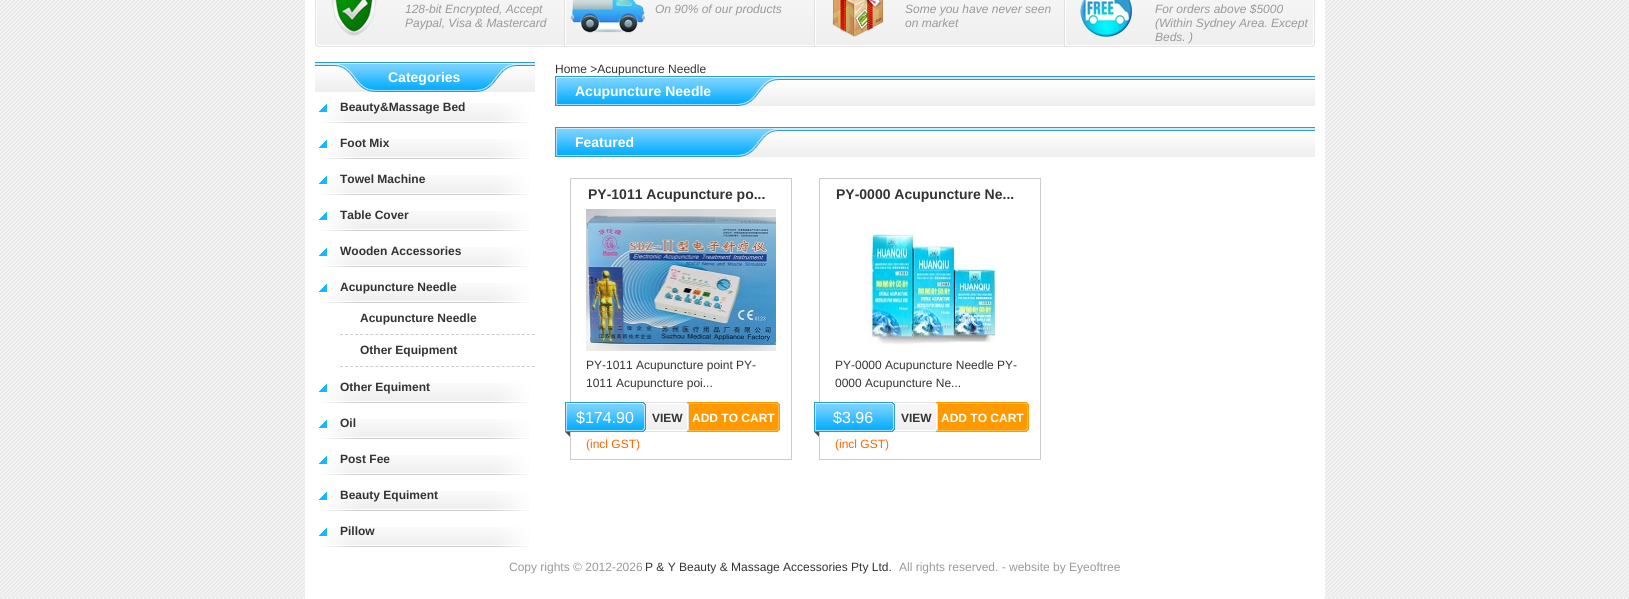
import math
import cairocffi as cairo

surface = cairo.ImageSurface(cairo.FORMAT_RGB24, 1629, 599)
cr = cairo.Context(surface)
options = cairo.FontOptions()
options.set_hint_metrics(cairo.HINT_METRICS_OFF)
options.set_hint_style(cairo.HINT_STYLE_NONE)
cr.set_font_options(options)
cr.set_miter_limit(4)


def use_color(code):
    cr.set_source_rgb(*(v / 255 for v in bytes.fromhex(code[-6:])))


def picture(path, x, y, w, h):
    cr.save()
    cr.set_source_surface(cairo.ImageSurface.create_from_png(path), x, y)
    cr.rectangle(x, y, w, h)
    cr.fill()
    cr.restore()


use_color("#ffffff")
cr.paint()
picture("img1.png", 0, 0, 1629, 599)
use_color("#ffffff")
cr.rectangle(305, 0, 1020, 599)
cr.fill()
picture("img2.png", 315, 0, 1000, 47)
picture("img3.png", 331, 0, 46, 36)
cr.select_font_face("Liberation Sans", cairo.FONT_SLANT_ITALIC)
cr.set_font_size(12)
use_color("#999999")
cr.move_to(405, 13)
cr.show_text("128-bit Encrypted, Accept")
cr.move_to(405, 27)
cr.show_text("Paypal, Visa & Mastercard")
picture("img4.png", 570, 0, 75, 33)
cr.move_to(655, 13)
cr.show_text("On 90% of our products")
picture("img5.png", 832, 0, 51, 37)
cr.move_to(905, 13)
cr.show_text("Some you have never seen")
cr.move_to(905, 27)
cr.show_text("on market")
picture("img6.png", 1080, 0, 52, 37)
cr.move_to(1155, 13)
cr.show_text("For orders above $5000")
cr.move_to(1155, 27)
cr.show_text("(Within Sydney Area. Except")
cr.move_to(1155, 41)
cr.show_text("Beds. )")
picture("img7.png", 315, 62, 220, 30)
cr.select_font_face("Liberation Sans", cairo.FONT_SLANT_NORMAL, cairo.FONT_WEIGHT_BOLD)
cr.set_font_size(14)
use_color("#ffffff")
cr.move_to(388, 82)
cr.show_text("Categories")
picture("img8.png", 319, 103, 211, 20)
cr.set_font_size(12)
use_color("#333333")
cr.move_to(340, 111)
cr.show_text("Beauty&Massage Bed")
picture("img8.png", 319, 139, 211, 20)
cr.move_to(340, 147)
cr.show_text("Foot Mix")
picture("img8.png", 319, 175, 211, 20)
cr.move_to(340, 183)
cr.show_text("Towel Machine")
picture("img8.png", 319, 211, 211, 20)
cr.move_to(340, 219)
cr.show_text("Table Cover")
picture("img8.png", 319, 247, 211, 20)
cr.move_to(340, 255)
cr.show_text("Wooden Accessories")
picture("img8.png", 319, 283, 211, 20)
cr.move_to(340, 291)
cr.show_text("Acupuncture Needle")
cr.save()
cr.rectangle(315, 92, 220, 460)
cr.clip()
cr.new_path()
cr.move_to(340, 334.5)
cr.line_to(560, 334.5)
use_color("#cccccc")
cr.set_line_width(1)
cr.set_dash([3, 2.05])
cr.stroke()
cr.restore()
cr.move_to(360, 322)
cr.show_text("Acupuncture Needle")
cr.save()
cr.rectangle(315, 92, 220, 460)
cr.clip()
cr.new_path()
cr.move_to(340, 366.5)
cr.line_to(560, 366.5)
use_color("#cccccc")
cr.set_line_width(1)
cr.set_dash([3, 2.05])
cr.stroke()
cr.restore()
cr.move_to(360, 354)
cr.show_text("Other Equipment")
picture("img8.png", 319, 383, 211, 20)
cr.move_to(340, 391)
cr.show_text("Other Equiment")
picture("img8.png", 319, 419, 211, 20)
cr.move_to(340, 427)
cr.show_text("Oil")
picture("img8.png", 319, 455, 211, 20)
cr.move_to(340, 463)
cr.show_text("Post Fee")
picture("img8.png", 319, 491, 211, 20)
cr.move_to(340, 499)
cr.show_text("Beauty Equiment")
picture("img8.png", 319, 527, 211, 20)
cr.move_to(340, 535)
cr.show_text("Pillow")
cr.select_font_face("Liberation Sans")
cr.move_to(555, 73)
cr.show_text("Home >Acupuncture Needle")
picture("img9.png", 555, 76, 760, 30)
picture("img10.png", 555, 77, 223, 29)
cr.select_font_face("Liberation Sans", cairo.FONT_SLANT_NORMAL, cairo.FONT_WEIGHT_BOLD)
cr.set_font_size(14)
use_color("#ffffff")
cr.move_to(575, 96)
cr.show_text("Acupuncture Needle")
picture("img9.png", 555, 127, 760, 30)
picture("img10.png", 555, 128, 223, 29)
cr.move_to(575, 147)
cr.show_text("Featured")
cr.rectangle(570.5, 178.5, 221, 281)
use_color("#cccccc")
cr.set_line_width(1)
cr.stroke()
use_color("#333333")
cr.move_to(588, 199)
cr.show_text("PY-1011 Acupuncture po...")
picture("img11.png", 586, 209, 190, 142)
cr.select_font_face("Liberation Sans")
cr.set_font_size(12)
cr.move_to(586, 369)
cr.show_text("PY-1011 Acupuncture point PY-")
cr.move_to(586, 387)
cr.show_text("1011 Acupuncture poi...")
picture("img12.png", 565, 402, 215, 35)
cr.set_font_size(16)
use_color("#ffffff")
cr.move_to(576, 423)
cr.show_text("$174.90")
cr.select_font_face("Liberation Sans", cairo.FONT_SLANT_NORMAL, cairo.FONT_WEIGHT_BOLD)
cr.set_font_size(12)
use_color("#333333")
cr.move_to(652, 422)
cr.show_text("VIEW")
use_color("#ffffff")
cr.move_to(692, 422)
cr.show_text("ADD TO CART")
cr.select_font_face("Liberation Sans")
use_color("#ff6600")
cr.move_to(586, 448)
cr.show_text("(incl GST)")
cr.rectangle(819.5, 178.5, 221, 281)
use_color("#cccccc")
cr.stroke()
cr.select_font_face("Liberation Sans", cairo.FONT_SLANT_NORMAL, cairo.FONT_WEIGHT_BOLD)
cr.set_font_size(14)
use_color("#333333")
cr.move_to(836, 199)
cr.show_text("PY-0000 Acupuncture Ne...")
picture("img13.png", 867, 228, 130, 117)
cr.select_font_face("Liberation Sans")
cr.set_font_size(12)
cr.move_to(835, 369)
cr.show_text("PY-0000 Acupuncture Needle PY-")
cr.move_to(835, 387)
cr.show_text("0000 Acupuncture Ne...")
picture("img12.png", 814, 402, 215, 35)
cr.set_font_size(16)
use_color("#ffffff")
cr.move_to(833, 423)
cr.show_text("$3.96")
cr.select_font_face("Liberation Sans", cairo.FONT_SLANT_NORMAL, cairo.FONT_WEIGHT_BOLD)
cr.set_font_size(12)
use_color("#333333")
cr.move_to(901, 422)
cr.show_text("VIEW")
use_color("#ffffff")
cr.move_to(941, 422)
cr.show_text("ADD TO CART")
cr.select_font_face("Liberation Sans")
use_color("#ff6600")
cr.move_to(835, 448)
cr.show_text("(incl GST)")
use_color("#999999")
cr.move_to(509, 571)
cr.show_text("Copy rights © 2012-2026")
use_color("#333333")
cr.move_to(645, 571)
cr.show_text("P & Y Beauty & Massage Accessories Pty Ltd.")
use_color("#999999")
cr.move_to(899, 571)
cr.show_text("All rights reserved. - website by Eyeoftree")
surface.write_to_png("result.png")
